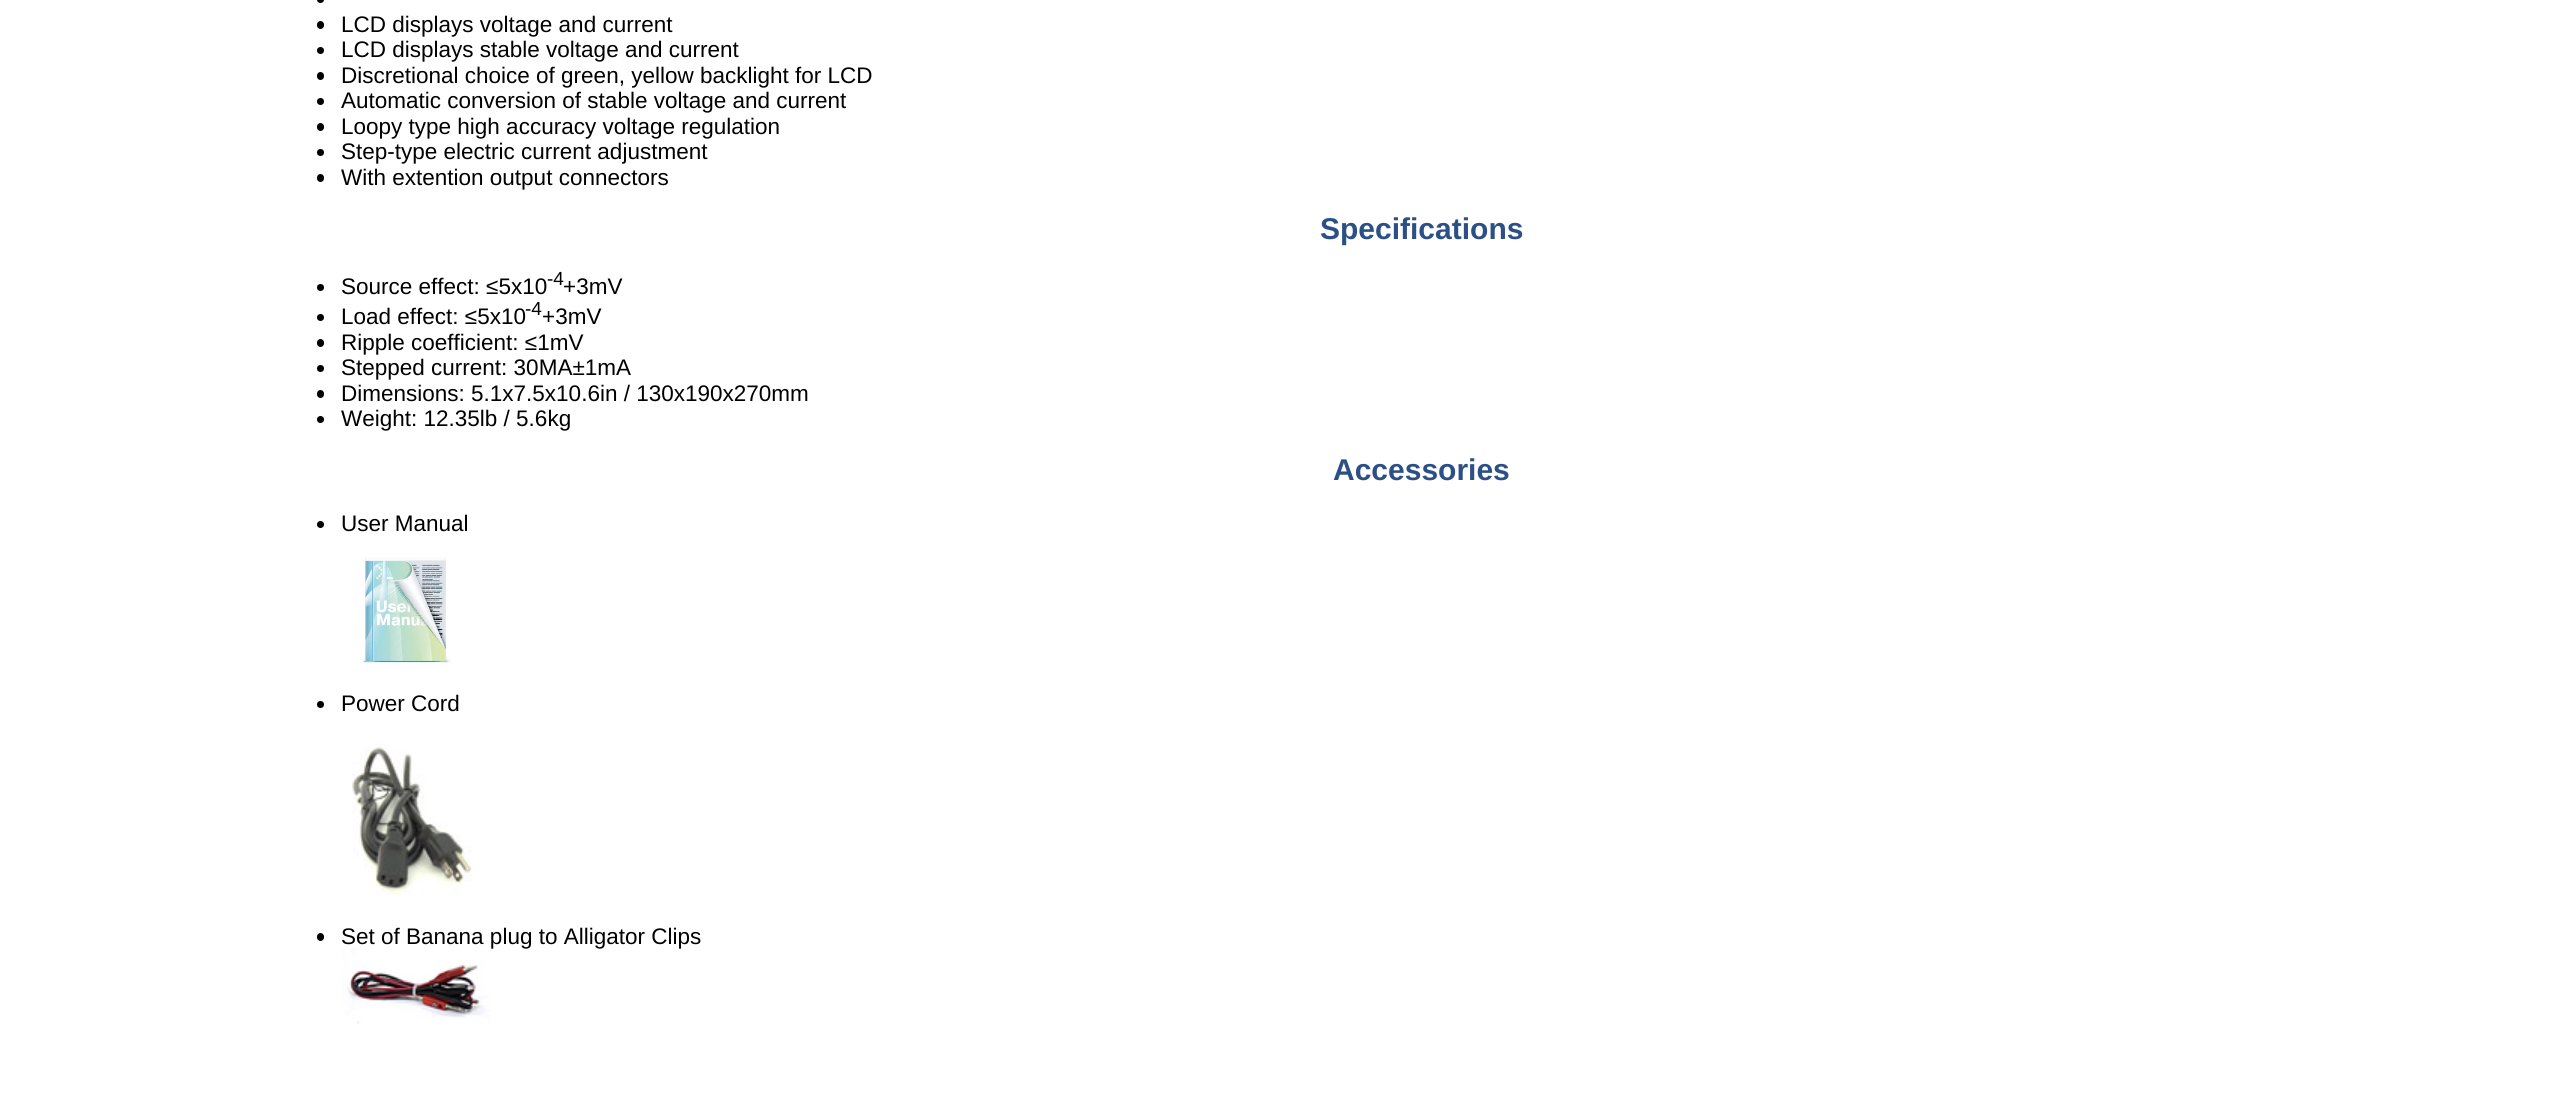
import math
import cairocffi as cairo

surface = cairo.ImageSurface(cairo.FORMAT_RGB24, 2576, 1097)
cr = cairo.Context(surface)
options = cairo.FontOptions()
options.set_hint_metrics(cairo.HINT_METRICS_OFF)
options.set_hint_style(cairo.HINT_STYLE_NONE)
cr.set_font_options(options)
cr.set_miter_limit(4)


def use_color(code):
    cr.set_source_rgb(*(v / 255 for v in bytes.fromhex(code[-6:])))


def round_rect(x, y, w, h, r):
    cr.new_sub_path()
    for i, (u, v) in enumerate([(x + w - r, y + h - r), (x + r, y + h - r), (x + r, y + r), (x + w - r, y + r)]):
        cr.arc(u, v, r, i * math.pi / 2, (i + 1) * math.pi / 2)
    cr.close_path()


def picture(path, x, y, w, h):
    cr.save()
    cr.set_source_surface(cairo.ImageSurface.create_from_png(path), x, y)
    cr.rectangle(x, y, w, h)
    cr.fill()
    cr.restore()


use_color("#ffffff")
cr.paint()
use_color("#000000")
cr.arc(320.5, -0.5, 3.5, 0, 2 * math.pi)
cr.fill()
round_rect(317, 21, 7, 8, 3.5)
cr.fill()
cr.select_font_face("Liberation Sans")
cr.set_font_size(22.5)
cr.move_to(341, 32)
cr.show_text("LCD displays voltage and current")
cr.new_path()
cr.arc(320.5, 50.5, 3.5, 0, 2 * math.pi)
cr.fill()
cr.move_to(341, 57)
cr.show_text("LCD displays stable voltage and current")
round_rect(317, 72, 7, 8, 3.5)
cr.fill()
cr.move_to(341, 83)
cr.show_text("Discretional choice of green, yellow backlight for LCD")
cr.new_path()
cr.arc(320.5, 101.5, 3.5, 0, 2 * math.pi)
cr.fill()
cr.move_to(341, 108)
cr.show_text("Automatic conversion of stable voltage and current")
round_rect(317, 123, 7, 8, 3.5)
cr.fill()
cr.move_to(341, 134)
cr.show_text("Loopy type high accuracy voltage regulation")
cr.new_path()
cr.arc(320.5, 152.5, 3.5, 0, 2 * math.pi)
cr.fill()
cr.move_to(341, 159)
cr.show_text("Step-type electric current adjustment")
round_rect(317, 174, 7, 8, 3.5)
cr.fill()
cr.move_to(341, 185)
cr.show_text("With extention output connectors")
cr.select_font_face("Liberation Sans", cairo.FONT_SLANT_NORMAL, cairo.FONT_WEIGHT_BOLD)
cr.set_font_size(30)
use_color("#2c5085")
cr.move_to(1320, 239)
cr.show_text("Specifications")
use_color("#000000")
cr.new_path()
cr.arc(320.5, 287.5, 3.5, 0, 2 * math.pi)
cr.fill()
cr.select_font_face("Liberation Sans")
cr.set_font_size(22.5)
cr.move_to(341, 294)
cr.show_text("Source effect: ≤5x10")
cr.set_font_size(19)
cr.move_to(547, 285)
cr.show_text("-4")
cr.set_font_size(22.5)
cr.move_to(563, 294)
cr.show_text("+3mV")
cr.new_path()
cr.arc(320.5, 317.5, 3.5, 0, 2 * math.pi)
cr.fill()
cr.move_to(341, 324)
cr.show_text("Load effect: ≤5x10")
cr.set_font_size(19)
cr.move_to(525, 315)
cr.show_text("-4")
cr.set_font_size(22.5)
cr.move_to(542, 324)
cr.show_text("+3mV")
round_rect(317, 339, 7, 8, 3.5)
cr.fill()
cr.move_to(341, 350)
cr.show_text("Ripple coefficient: ≤1mV")
cr.new_path()
cr.arc(320.5, 368.5, 3.5, 0, 2 * math.pi)
cr.fill()
cr.move_to(341, 375)
cr.show_text("Stepped current: 30MA±1mA")
round_rect(317, 390, 7, 8, 3.5)
cr.fill()
cr.move_to(341, 401)
cr.show_text("Dimensions: 5.1x7.5x10.6in / 130x190x270mm")
cr.new_path()
cr.arc(320.5, 419.5, 3.5, 0, 2 * math.pi)
cr.fill()
cr.move_to(341, 426)
cr.show_text("Weight: 12.35lb / 5.6kg")
cr.select_font_face("Liberation Sans", cairo.FONT_SLANT_NORMAL, cairo.FONT_WEIGHT_BOLD)
cr.set_font_size(30)
use_color("#2c5085")
cr.move_to(1333, 480)
cr.show_text("Accessories")
use_color("#000000")
cr.new_path()
cr.arc(320.5, 524.5, 3.5, 0, 2 * math.pi)
cr.fill()
cr.select_font_face("Liberation Sans")
cr.set_font_size(22.5)
cr.move_to(341, 531)
cr.show_text("User Manual")
picture("img1.png", 361, 557, 91, 109)
cr.arc(320.5, 704.5, 3.5, 0, 2 * math.pi)
cr.fill()
cr.move_to(341, 711)
cr.show_text("Power Cord")
picture("img2.png", 352, 743, 120, 153)
round_rect(317, 933, 7, 8, 3.5)
cr.fill()
cr.move_to(341, 944)
cr.show_text("Set of Banana plug to Alligator Clips")
picture("img3.png", 341, 947, 150, 77)
surface.write_to_png("result.png")
